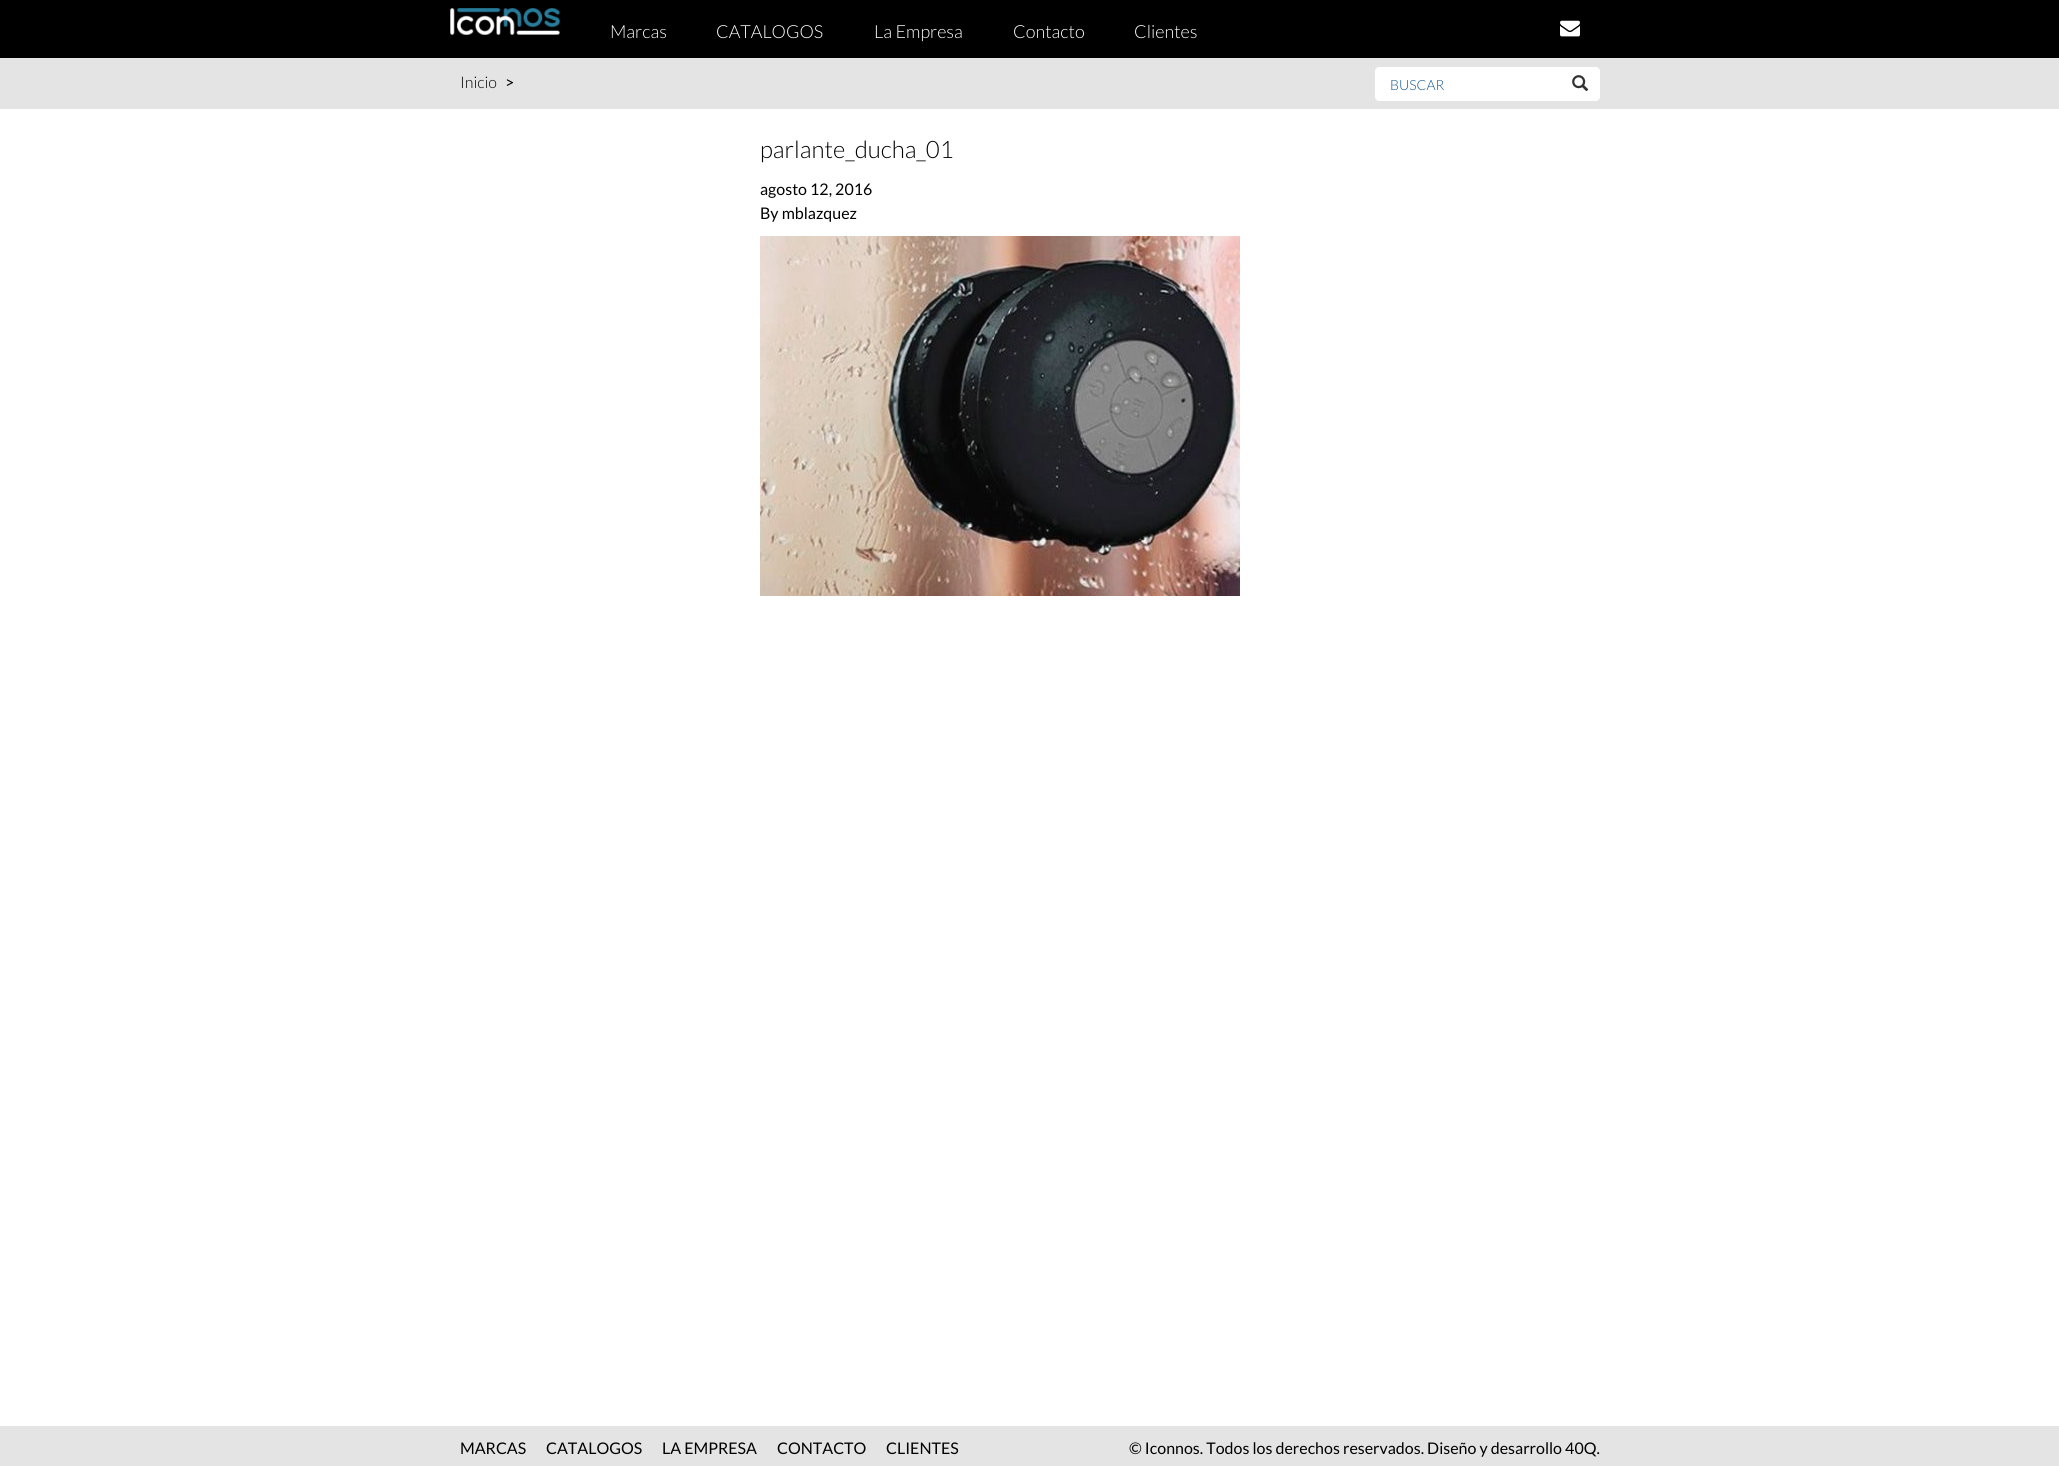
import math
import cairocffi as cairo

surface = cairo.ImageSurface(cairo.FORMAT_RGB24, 2059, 1466)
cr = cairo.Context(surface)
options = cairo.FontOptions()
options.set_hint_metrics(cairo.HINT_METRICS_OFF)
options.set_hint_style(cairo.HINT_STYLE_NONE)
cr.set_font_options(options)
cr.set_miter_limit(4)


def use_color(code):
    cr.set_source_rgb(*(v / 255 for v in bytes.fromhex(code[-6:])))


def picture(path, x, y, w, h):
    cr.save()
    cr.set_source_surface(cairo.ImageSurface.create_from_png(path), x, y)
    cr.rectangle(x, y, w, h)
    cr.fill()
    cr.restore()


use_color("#ffffff")
cr.paint()
use_color("#000000")
cr.rectangle(0, 0, 2059, 58)
cr.fill()
use_color("#e7e7e7")
cr.rectangle(0, 58, 2059, 1)
cr.fill()
picture("img1.png", 450, 8, 110, 27)
cr.select_font_face("Lato Light")
cr.set_font_size(18)
use_color("#ffffff")
cr.move_to(610, 38)
cr.show_text("Marcas")
cr.move_to(716, 38)
cr.show_text("CATALOGOS")
cr.move_to(874, 38)
cr.show_text("La Empresa")
cr.move_to(1013, 38)
cr.show_text("Contacto")
cr.move_to(1134, 38)
cr.show_text("Clientes")
picture("img2.png", 1560, 20, 20, 17)
use_color("#e4e4e4")
cr.rectangle(0, 59, 2059, 50)
cr.fill()
cr.set_font_size(16)
use_color("#000000")
cr.move_to(460, 88)
cr.show_text("Inicio")
cr.select_font_face("Lato")
cr.move_to(505, 88)
cr.show_text(">")
use_color("#ffffff")
cr.new_path()
cr.move_to(1379, 67)
cr.line_to(1561, 67)
cr.line_to(1561, 101)
cr.line_to(1379, 101)
cr.curve_to(1377, 101, 1375, 99, 1375, 97)
cr.line_to(1375, 71)
cr.curve_to(1375, 69, 1377, 67, 1379, 67)
cr.close_path()
cr.fill()
cr.select_font_face("Lato Light")
cr.set_font_size(14)
use_color("#125690")
cr.move_to(1390, 90)
cr.show_text("BUSCAR")
use_color("#ffffff")
cr.new_path()
cr.move_to(1560, 67)
cr.line_to(1596, 67)
cr.curve_to(1598, 67, 1600, 69, 1600, 71)
cr.line_to(1600, 97)
cr.curve_to(1600, 99, 1598, 101, 1596, 101)
cr.line_to(1560, 101)
cr.close_path()
cr.fill()
picture("img3.png", 1572, 75, 17, 17)
cr.set_font_size(24)
use_color("#000000")
cr.move_to(760, 158)
cr.show_text("parlante_ducha_01")
cr.select_font_face("Lato")
cr.set_font_size(16)
cr.move_to(760, 195)
cr.show_text("agosto 12, 2016")
cr.move_to(760, 219)
cr.show_text("By mblazquez")
picture("img4.png", 760, 236, 480, 360)
use_color("#e4e4e4")
cr.rectangle(0, 1426, 2059, 40)
cr.fill()
use_color("#000000")
cr.move_to(460, 1454)
cr.show_text("MARCAS")
cr.move_to(546, 1454)
cr.show_text("CATALOGOS")
cr.move_to(662, 1454)
cr.show_text("LA EMPRESA")
cr.move_to(777, 1454)
cr.show_text("CONTACTO")
cr.move_to(886, 1454)
cr.show_text("CLIENTES")
cr.move_to(1129, 1454)
cr.show_text("© Iconnos. Todos los derechos reservados. Diseño y desarrollo 40Q.")
surface.write_to_png("result.png")
